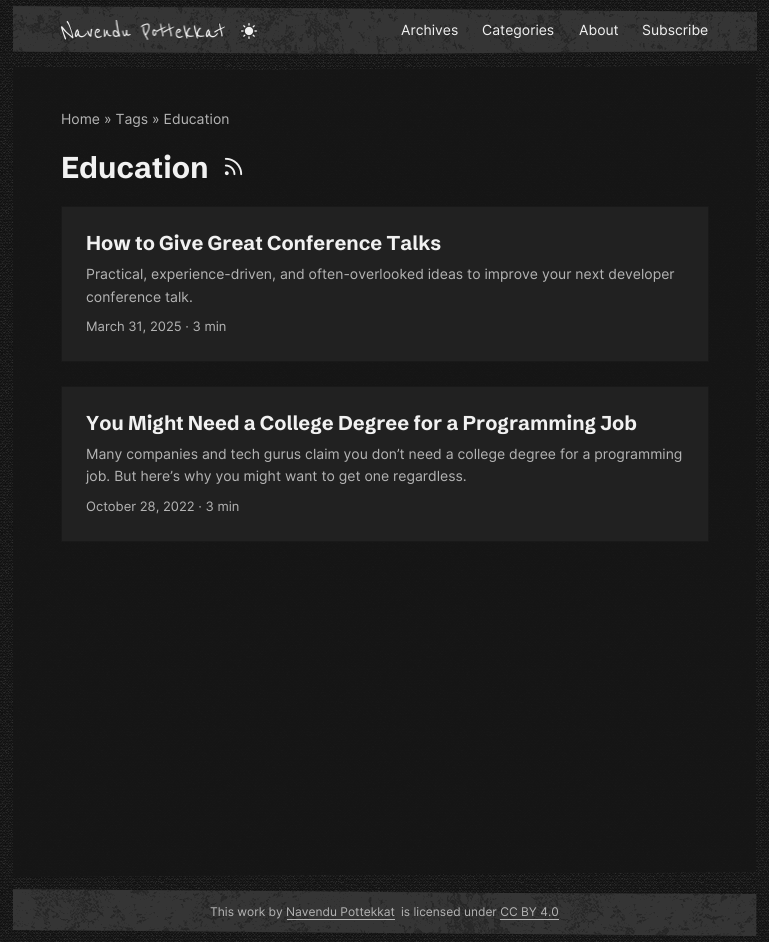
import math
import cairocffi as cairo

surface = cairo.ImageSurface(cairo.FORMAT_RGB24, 769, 942)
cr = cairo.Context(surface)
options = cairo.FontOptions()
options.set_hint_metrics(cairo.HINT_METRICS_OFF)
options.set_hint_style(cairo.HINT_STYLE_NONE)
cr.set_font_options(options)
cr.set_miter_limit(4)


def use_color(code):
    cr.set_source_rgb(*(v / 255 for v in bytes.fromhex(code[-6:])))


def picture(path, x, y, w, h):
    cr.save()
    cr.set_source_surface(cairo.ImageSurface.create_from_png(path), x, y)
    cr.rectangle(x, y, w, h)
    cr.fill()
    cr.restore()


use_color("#111111")
cr.paint()
picture("img1.png", 0, 0, 769, 942)
use_color("#212121")
cr.new_path()
cr.move_to(13, 52)
cr.line_to(13, 6)
cr.line_to(757, 12)
cr.line_to(757, 51)
cr.line_to(384, 54)
cr.close_path()
cr.fill()
picture("img2.png", 13, 6, 744, 48)
picture("img3.png", 61, 20, 164, 20)
picture("img4.png", 241, 23, 16, 16)
cr.select_font_face("Inter")
cr.set_font_size(14)
use_color("#f1f1f1")
cr.move_to(401, 35)
cr.show_text("Archives")
cr.move_to(482, 35)
cr.show_text("Categories")
cr.move_to(579, 35)
cr.show_text("About")
cr.move_to(642, 35)
cr.show_text("Subscribe")
cr.set_source_rgba(0.086, 0.086, 0.086, 0.9)
cr.new_path()
cr.move_to(13, 877)
cr.line_to(13, 67)
cr.line_to(265, 70)
cr.line_to(756, 65)
cr.line_to(756, 872)
cr.close_path()
cr.fill()
use_color("#b4b4b4")
cr.move_to(61, 124)
cr.show_text("Home » Tags » Education")
cr.select_font_face("Schibsted Grotesk", cairo.FONT_SLANT_NORMAL, cairo.FONT_WEIGHT_BOLD)
cr.set_font_size(30)
use_color("#f1f1f1")
cr.move_to(61, 178)
cr.show_text("Education")
picture("img5.png", 224, 157, 19, 19)
use_color("#212121")
cr.rectangle(61.5, 206.5, 647, 155)
cr.fill_preserve()
use_color("#191919")
cr.set_line_width(1)
cr.stroke()
cr.set_font_size(20)
use_color("#f1f1f1")
cr.move_to(86, 250)
cr.show_text("How to Give Great Conference Talks")
cr.select_font_face("Inter")
cr.set_font_size(14)
use_color("#b4b4b4")
cr.move_to(86, 279)
cr.show_text("Practical, experience-driven, and often-overlooked ideas to improve your next developer")
cr.move_to(86, 302)
cr.show_text("conference talk.")
cr.set_font_size(13)
cr.move_to(86, 331)
cr.show_text("March 31, 2025 · 3 min")
use_color("#212121")
cr.rectangle(61.5, 386.5, 647, 155)
cr.fill_preserve()
use_color("#191919")
cr.stroke()
cr.select_font_face("Schibsted Grotesk", cairo.FONT_SLANT_NORMAL, cairo.FONT_WEIGHT_BOLD)
cr.set_font_size(20)
use_color("#f1f1f1")
cr.move_to(86, 430)
cr.show_text("You Might Need a College Degree for a Programming Job")
cr.select_font_face("Inter")
cr.set_font_size(14)
use_color("#b4b4b4")
cr.move_to(86, 459)
cr.show_text("Many companies and tech gurus claim you don’t need a college degree for a programming")
cr.move_to(86, 481)
cr.show_text("job. But here’s why you might want to get one regardless.")
cr.set_font_size(13)
cr.move_to(86, 511)
cr.show_text("October 28, 2022 · 3 min")
use_color("#212121")
cr.new_path()
cr.move_to(13, 930)
cr.line_to(13, 889)
cr.line_to(489, 893)
cr.line_to(756, 894)
cr.line_to(756, 936)
cr.close_path()
cr.fill()
picture("img6.png", 13, 889, 744, 47)
cr.set_font_size(12)
use_color("#b4b4b4")
cr.move_to(210, 916)
cr.show_text("This work by Navendu Pottekkat")
cr.rectangle(287, 919, 108, 1)
cr.fill()
cr.move_to(401, 916)
cr.show_text("is licensed under CC BY 4.0")
cr.rectangle(500, 919, 59, 1)
cr.fill()
surface.write_to_png("result.png")
